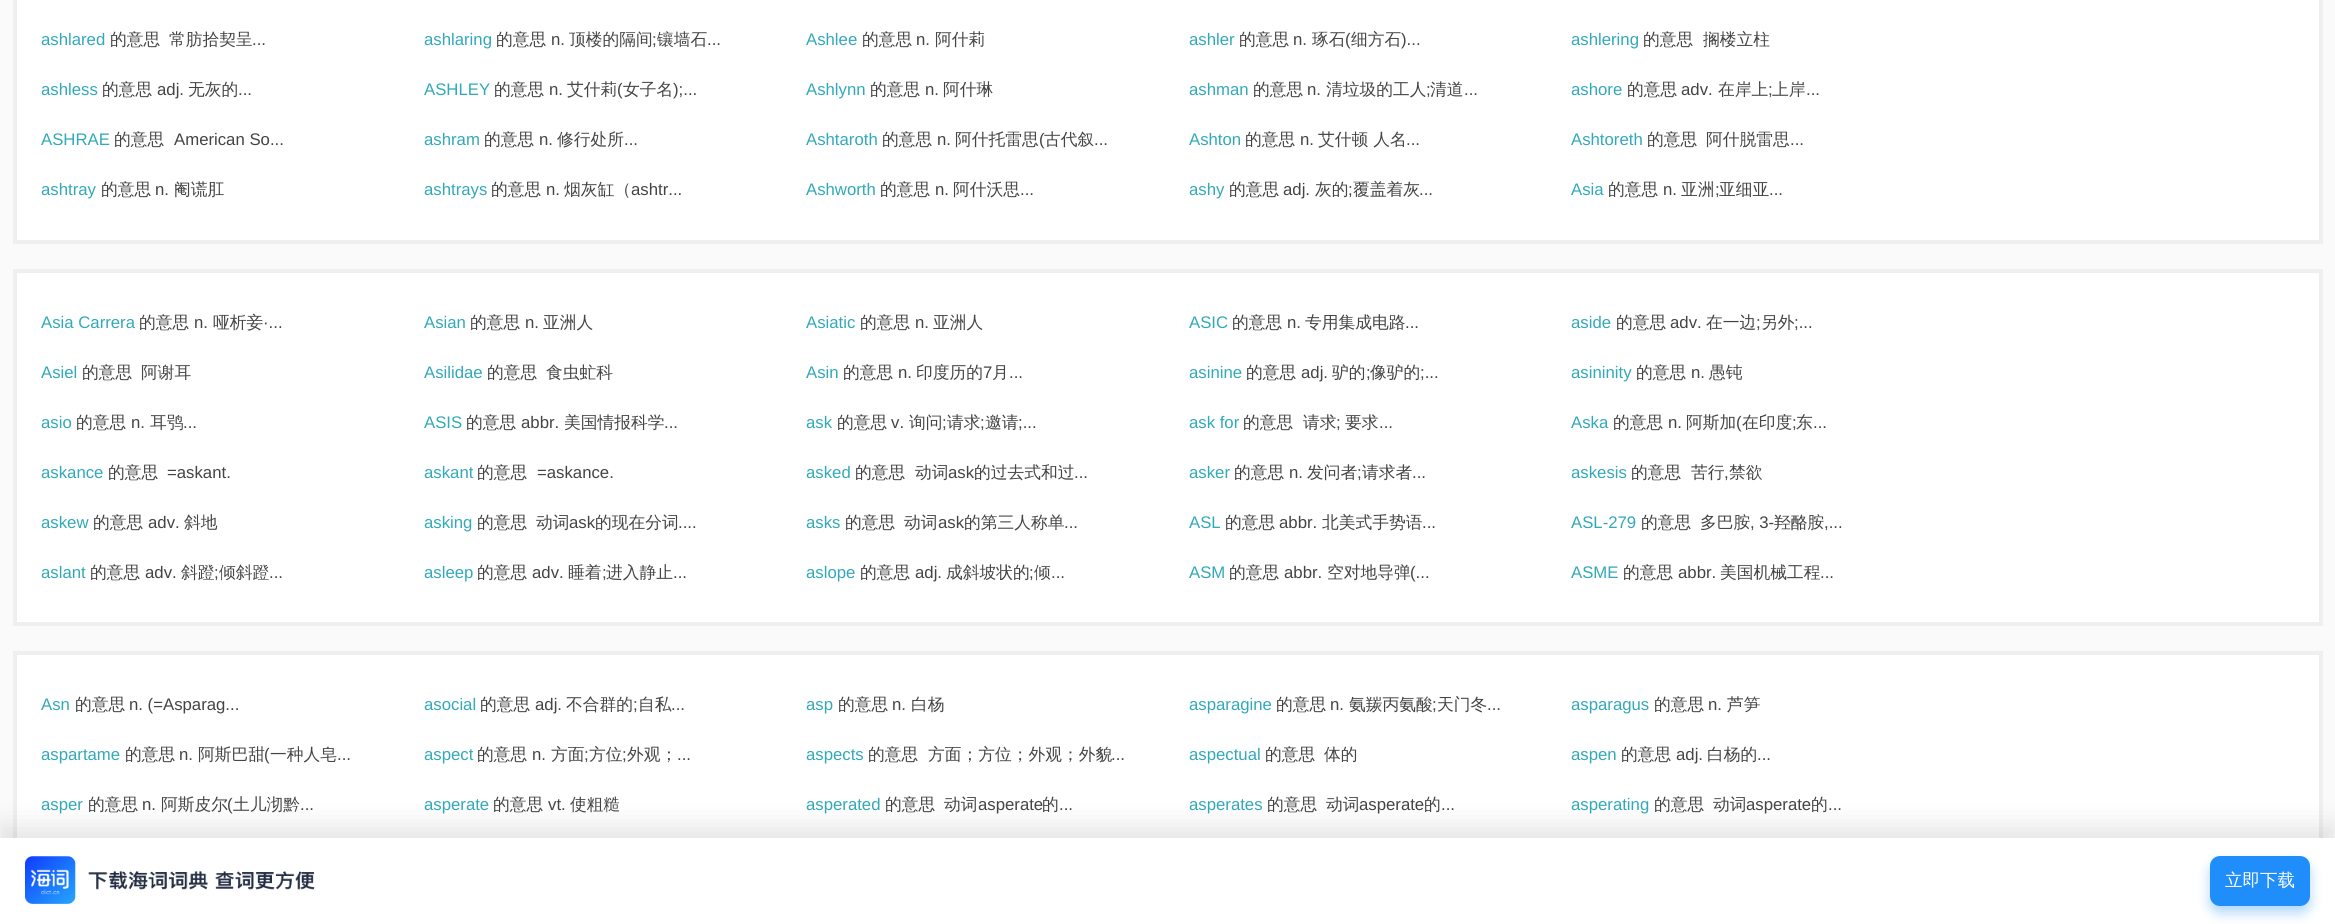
import math
import cairocffi as cairo

surface = cairo.ImageSurface(cairo.FORMAT_RGB24, 2335, 924)
cr = cairo.Context(surface)
options = cairo.FontOptions()
options.set_hint_metrics(cairo.HINT_METRICS_OFF)
options.set_hint_style(cairo.HINT_STYLE_NONE)
cr.set_font_options(options)
cr.set_miter_limit(4)


def use_color(code):
    cr.set_source_rgb(*(v / 255 for v in bytes.fromhex(code[-6:])))


def round_rect(x, y, w, h, r):
    cr.new_sub_path()
    for i, (u, v) in enumerate([(x + w - r, y + h - r), (x + r, y + h - r), (x + r, y + r), (x + w - r, y + r)]):
        cr.arc(u, v, r, i * math.pi / 2, (i + 1) * math.pi / 2)
    cr.close_path()


def shadow(x, y, w, h, r, blur, alpha):
    cr.push_group_with_content(cairo.CONTENT_ALPHA)
    cr.set_operator(cairo.OPERATOR_SOURCE)
    for i in range(15, -16, -2):
        e = blur * i / 6
        if min(w, h) + 2 * e > 0:
            cr.set_source_rgba(0, 0, 0, alpha * math.erfc((i - 1) / 8.5) / 2)
            round_rect(x - e, y - e, w + 2 * e, h + 2 * e, max(0, min(r + e + blur * .6, min(w, h) / 2 + e)))
            cr.fill()
    cr.mask(cr.pop_group())


def picture(path, x, y, w, h):
    cr.save()
    cr.set_source_surface(cairo.ImageSurface.create_from_png(path), x, y)
    cr.rectangle(x, y, w, h)
    cr.fill()
    cr.restore()


use_color("#fafafa")
cr.paint()
use_color("#ffffff")
cr.rectangle(15, -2, 2306, 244)
cr.fill_preserve()
use_color("#efefef")
cr.set_line_width(4)
cr.stroke()
cr.select_font_face("Liberation Sans")
cr.set_font_size(16.75)
use_color("#32a9ba")
cr.move_to(41, 45)
cr.show_text("ashlared")
cr.select_font_face("WenQuanYi Zen Hei Medium")
use_color("#444444")
cr.move_to(110, 45)
cr.show_text("的意思")
cr.move_to(169, 45)
cr.show_text("常肪拾契呈")
cr.select_font_face("Liberation Sans")
cr.move_to(252, 45)
cr.show_text("...")
use_color("#32a9ba")
cr.move_to(424, 45)
cr.show_text("ashlaring")
cr.select_font_face("WenQuanYi Zen Hei Medium")
use_color("#444444")
cr.move_to(496, 45)
cr.show_text("的意思")
cr.select_font_face("Liberation Sans")
cr.move_to(551, 45)
cr.show_text("n.")
cr.select_font_face("WenQuanYi Zen Hei Medium")
cr.move_to(569, 45)
cr.show_text("顶楼的隔间")
cr.select_font_face("Liberation Sans")
cr.move_to(652, 45)
cr.show_text(";")
cr.select_font_face("WenQuanYi Zen Hei Medium")
cr.move_to(657, 45)
cr.show_text("镶墙石")
cr.select_font_face("Liberation Sans")
cr.move_to(707, 45)
cr.show_text("...")
use_color("#32a9ba")
cr.move_to(806, 45)
cr.show_text("Ashlee")
cr.select_font_face("WenQuanYi Zen Hei Medium")
use_color("#444444")
cr.move_to(862, 45)
cr.show_text("的意思")
cr.select_font_face("Liberation Sans")
cr.move_to(916, 45)
cr.show_text("n.")
cr.select_font_face("WenQuanYi Zen Hei Medium")
cr.move_to(935, 45)
cr.show_text("阿什莉")
cr.select_font_face("Liberation Sans")
use_color("#32a9ba")
cr.move_to(1189, 45)
cr.show_text("ashler")
cr.select_font_face("WenQuanYi Zen Hei Medium")
use_color("#444444")
cr.move_to(1239, 45)
cr.show_text("的意思")
cr.select_font_face("Liberation Sans")
cr.move_to(1293, 45)
cr.show_text("n.")
cr.select_font_face("WenQuanYi Zen Hei Medium")
cr.move_to(1312, 45)
cr.show_text("琢石")
cr.select_font_face("Liberation Sans")
cr.move_to(1345, 45)
cr.show_text("(")
cr.select_font_face("WenQuanYi Zen Hei Medium")
cr.move_to(1351, 45)
cr.show_text("细方石")
cr.select_font_face("Liberation Sans")
cr.move_to(1401, 45)
cr.show_text(")...")
use_color("#32a9ba")
cr.move_to(1571, 45)
cr.show_text("ashlering")
cr.select_font_face("WenQuanYi Zen Hei Medium")
use_color("#444444")
cr.move_to(1643, 45)
cr.show_text("的意思")
cr.move_to(1703, 45)
cr.show_text("搁楼立柱")
cr.select_font_face("Liberation Sans")
use_color("#32a9ba")
cr.move_to(41, 95)
cr.show_text("ashless")
cr.select_font_face("WenQuanYi Zen Hei Medium")
use_color("#444444")
cr.move_to(102, 95)
cr.show_text("的意思")
cr.select_font_face("Liberation Sans")
cr.move_to(157, 95)
cr.show_text("adj.")
cr.select_font_face("WenQuanYi Zen Hei Medium")
cr.move_to(188, 95)
cr.show_text("无灰的")
cr.select_font_face("Liberation Sans")
cr.move_to(238, 95)
cr.show_text("...")
use_color("#32a9ba")
cr.move_to(424, 95)
cr.show_text("ASHLEY")
cr.select_font_face("WenQuanYi Zen Hei Medium")
use_color("#444444")
cr.move_to(494, 95)
cr.show_text("的意思")
cr.select_font_face("Liberation Sans")
cr.move_to(549, 95)
cr.show_text("n.")
cr.select_font_face("WenQuanYi Zen Hei Medium")
cr.move_to(567, 95)
cr.show_text("艾什莉")
cr.select_font_face("Liberation Sans")
cr.move_to(617, 95)
cr.show_text("(")
cr.select_font_face("WenQuanYi Zen Hei Medium")
cr.move_to(623, 95)
cr.show_text("女子名")
cr.select_font_face("Liberation Sans")
cr.move_to(673, 95)
cr.show_text(");...")
use_color("#32a9ba")
cr.move_to(806, 95)
cr.show_text("Ashlynn")
cr.select_font_face("WenQuanYi Zen Hei Medium")
use_color("#444444")
cr.move_to(870, 95)
cr.show_text("的意思")
cr.select_font_face("Liberation Sans")
cr.move_to(925, 95)
cr.show_text("n.")
cr.select_font_face("WenQuanYi Zen Hei Medium")
cr.move_to(943, 95)
cr.show_text("阿什琳")
cr.select_font_face("Liberation Sans")
use_color("#32a9ba")
cr.move_to(1189, 95)
cr.show_text("ashman")
cr.select_font_face("WenQuanYi Zen Hei Medium")
use_color("#444444")
cr.move_to(1253, 95)
cr.show_text("的意思")
cr.select_font_face("Liberation Sans")
cr.move_to(1307, 95)
cr.show_text("n.")
cr.select_font_face("WenQuanYi Zen Hei Medium")
cr.move_to(1326, 95)
cr.show_text("清垃圾的工人")
cr.select_font_face("Liberation Sans")
cr.move_to(1426, 95)
cr.show_text(";")
cr.select_font_face("WenQuanYi Zen Hei Medium")
cr.move_to(1430, 95)
cr.show_text("清道")
cr.select_font_face("Liberation Sans")
cr.move_to(1464, 95)
cr.show_text("...")
use_color("#32a9ba")
cr.move_to(1571, 95)
cr.show_text("ashore")
cr.select_font_face("WenQuanYi Zen Hei Medium")
use_color("#444444")
cr.move_to(1627, 95)
cr.show_text("的意思")
cr.select_font_face("Liberation Sans")
cr.move_to(1681, 95)
cr.show_text("adv.")
cr.select_font_face("WenQuanYi Zen Hei Medium")
cr.move_to(1718, 95)
cr.show_text("在岸上")
cr.select_font_face("Liberation Sans")
cr.move_to(1768, 95)
cr.show_text(";")
cr.select_font_face("WenQuanYi Zen Hei Medium")
cr.move_to(1772, 95)
cr.show_text("上岸")
cr.select_font_face("Liberation Sans")
cr.move_to(1806, 95)
cr.show_text("...")
use_color("#32a9ba")
cr.move_to(41, 145)
cr.show_text("ASHRAE")
cr.select_font_face("WenQuanYi Zen Hei Medium")
use_color("#444444")
cr.move_to(114, 145)
cr.show_text("的意思")
cr.select_font_face("Liberation Sans")
cr.move_to(174, 145)
cr.show_text("American So...")
use_color("#32a9ba")
cr.move_to(424, 145)
cr.show_text("ashram")
cr.select_font_face("WenQuanYi Zen Hei Medium")
use_color("#444444")
cr.move_to(484, 145)
cr.show_text("的意思")
cr.select_font_face("Liberation Sans")
cr.move_to(539, 145)
cr.show_text("n.")
cr.select_font_face("WenQuanYi Zen Hei Medium")
cr.move_to(557, 145)
cr.show_text("修行处所")
cr.select_font_face("Liberation Sans")
cr.move_to(624, 145)
cr.show_text("...")
use_color("#32a9ba")
cr.move_to(806, 145)
cr.show_text("Ashtaroth")
cr.select_font_face("WenQuanYi Zen Hei Medium")
use_color("#444444")
cr.move_to(882, 145)
cr.show_text("的意思")
cr.select_font_face("Liberation Sans")
cr.move_to(937, 145)
cr.show_text("n.")
cr.select_font_face("WenQuanYi Zen Hei Medium")
cr.move_to(955, 145)
cr.show_text("阿什托雷思")
cr.select_font_face("Liberation Sans")
cr.move_to(1039, 145)
cr.show_text("(")
cr.select_font_face("WenQuanYi Zen Hei Medium")
cr.move_to(1044, 145)
cr.show_text("古代叙")
cr.select_font_face("Liberation Sans")
cr.move_to(1094, 145)
cr.show_text("...")
use_color("#32a9ba")
cr.move_to(1189, 145)
cr.show_text("Ashton")
cr.select_font_face("WenQuanYi Zen Hei Medium")
use_color("#444444")
cr.move_to(1245, 145)
cr.show_text("的意思")
cr.select_font_face("Liberation Sans")
cr.move_to(1300, 145)
cr.show_text("n.")
cr.select_font_face("WenQuanYi Zen Hei Medium")
cr.move_to(1318, 145)
cr.show_text("艾什顿 人名")
cr.select_font_face("Liberation Sans")
cr.move_to(1406, 145)
cr.show_text("...")
use_color("#32a9ba")
cr.move_to(1571, 145)
cr.show_text("Ashtoreth")
cr.select_font_face("WenQuanYi Zen Hei Medium")
use_color("#444444")
cr.move_to(1647, 145)
cr.show_text("的意思")
cr.move_to(1706, 145)
cr.show_text("阿什脱雷思")
cr.select_font_face("Liberation Sans")
cr.move_to(1790, 145)
cr.show_text("...")
use_color("#32a9ba")
cr.move_to(41, 195)
cr.show_text("ashtray")
cr.select_font_face("WenQuanYi Zen Hei Medium")
use_color("#444444")
cr.move_to(101, 195)
cr.show_text("的意思")
cr.select_font_face("Liberation Sans")
cr.move_to(155, 195)
cr.show_text("n.")
cr.select_font_face("WenQuanYi Zen Hei Medium")
cr.move_to(174, 195)
cr.show_text("阉谎肛")
cr.select_font_face("Liberation Sans")
use_color("#32a9ba")
cr.move_to(424, 195)
cr.show_text("ashtrays")
cr.select_font_face("WenQuanYi Zen Hei Medium")
use_color("#444444")
cr.move_to(491, 195)
cr.show_text("的意思")
cr.select_font_face("Liberation Sans")
cr.move_to(546, 195)
cr.show_text("n.")
cr.select_font_face("WenQuanYi Zen Hei Medium")
cr.move_to(564, 195)
cr.show_text("烟灰缸（")
cr.select_font_face("Liberation Sans")
cr.move_to(631, 195)
cr.show_text("ashtr...")
use_color("#32a9ba")
cr.move_to(806, 195)
cr.show_text("Ashworth")
cr.select_font_face("WenQuanYi Zen Hei Medium")
use_color("#444444")
cr.move_to(880, 195)
cr.show_text("的意思")
cr.select_font_face("Liberation Sans")
cr.move_to(935, 195)
cr.show_text("n.")
cr.select_font_face("WenQuanYi Zen Hei Medium")
cr.move_to(953, 195)
cr.show_text("阿什沃思")
cr.select_font_face("Liberation Sans")
cr.move_to(1020, 195)
cr.show_text("...")
use_color("#32a9ba")
cr.move_to(1189, 195)
cr.show_text("ashy")
cr.select_font_face("WenQuanYi Zen Hei Medium")
use_color("#444444")
cr.move_to(1229, 195)
cr.show_text("的意思")
cr.select_font_face("Liberation Sans")
cr.move_to(1283, 195)
cr.show_text("adj.")
cr.select_font_face("WenQuanYi Zen Hei Medium")
cr.move_to(1315, 195)
cr.show_text("灰的")
cr.select_font_face("Liberation Sans")
cr.move_to(1348, 195)
cr.show_text(";")
cr.select_font_face("WenQuanYi Zen Hei Medium")
cr.move_to(1353, 195)
cr.show_text("覆盖着灰")
cr.select_font_face("Liberation Sans")
cr.move_to(1419, 195)
cr.show_text("...")
use_color("#32a9ba")
cr.move_to(1571, 195)
cr.show_text("Asia")
cr.select_font_face("WenQuanYi Zen Hei Medium")
use_color("#444444")
cr.move_to(1608, 195)
cr.show_text("的意思")
cr.select_font_face("Liberation Sans")
cr.move_to(1663, 195)
cr.show_text("n.")
cr.select_font_face("WenQuanYi Zen Hei Medium")
cr.move_to(1681, 195)
cr.show_text("亚洲")
cr.select_font_face("Liberation Sans")
cr.move_to(1715, 195)
cr.show_text(";")
cr.select_font_face("WenQuanYi Zen Hei Medium")
cr.move_to(1719, 195)
cr.show_text("亚细亚")
cr.select_font_face("Liberation Sans")
cr.move_to(1769, 195)
cr.show_text("...")
use_color("#ffffff")
cr.rectangle(15, 271, 2306, 353)
cr.fill_preserve()
use_color("#efefef")
cr.stroke()
use_color("#32a9ba")
cr.move_to(41, 328)
cr.show_text("Asia Carrera")
cr.select_font_face("WenQuanYi Zen Hei Medium")
use_color("#444444")
cr.move_to(139, 328)
cr.show_text("的意思")
cr.select_font_face("Liberation Sans")
cr.move_to(194, 328)
cr.show_text("n.")
cr.select_font_face("WenQuanYi Zen Hei Medium")
cr.move_to(213, 328)
cr.show_text("哑析妾")
cr.select_font_face("Liberation Sans")
cr.move_to(263, 328)
cr.show_text("·...")
use_color("#32a9ba")
cr.move_to(424, 328)
cr.show_text("Asian")
cr.select_font_face("WenQuanYi Zen Hei Medium")
use_color("#444444")
cr.move_to(470, 328)
cr.show_text("的意思")
cr.select_font_face("Liberation Sans")
cr.move_to(525, 328)
cr.show_text("n.")
cr.select_font_face("WenQuanYi Zen Hei Medium")
cr.move_to(543, 328)
cr.show_text("亚洲人")
cr.select_font_face("Liberation Sans")
use_color("#32a9ba")
cr.move_to(806, 328)
cr.show_text("Asiatic")
cr.select_font_face("WenQuanYi Zen Hei Medium")
use_color("#444444")
cr.move_to(860, 328)
cr.show_text("的意思")
cr.select_font_face("Liberation Sans")
cr.move_to(915, 328)
cr.show_text("n.")
cr.select_font_face("WenQuanYi Zen Hei Medium")
cr.move_to(933, 328)
cr.show_text("亚洲人")
cr.select_font_face("Liberation Sans")
use_color("#32a9ba")
cr.move_to(1189, 328)
cr.show_text("ASIC")
cr.select_font_face("WenQuanYi Zen Hei Medium")
use_color("#444444")
cr.move_to(1232, 328)
cr.show_text("的意思")
cr.select_font_face("Liberation Sans")
cr.move_to(1287, 328)
cr.show_text("n.")
cr.select_font_face("WenQuanYi Zen Hei Medium")
cr.move_to(1305, 328)
cr.show_text("专用集成电路")
cr.select_font_face("Liberation Sans")
cr.move_to(1405, 328)
cr.show_text("...")
use_color("#32a9ba")
cr.move_to(1571, 328)
cr.show_text("aside")
cr.select_font_face("WenQuanYi Zen Hei Medium")
use_color("#444444")
cr.move_to(1616, 328)
cr.show_text("的意思")
cr.select_font_face("Liberation Sans")
cr.move_to(1670, 328)
cr.show_text("adv.")
cr.select_font_face("WenQuanYi Zen Hei Medium")
cr.move_to(1706, 328)
cr.show_text("在一边")
cr.select_font_face("Liberation Sans")
cr.move_to(1756, 328)
cr.show_text(";")
cr.select_font_face("WenQuanYi Zen Hei Medium")
cr.move_to(1761, 328)
cr.show_text("另外")
cr.select_font_face("Liberation Sans")
cr.move_to(1794, 328)
cr.show_text(";...")
use_color("#32a9ba")
cr.move_to(41, 378)
cr.show_text("Asiel")
cr.select_font_face("WenQuanYi Zen Hei Medium")
use_color("#444444")
cr.move_to(82, 378)
cr.show_text("的意思")
cr.move_to(141, 378)
cr.show_text("阿谢耳")
cr.select_font_face("Liberation Sans")
use_color("#32a9ba")
cr.move_to(424, 378)
cr.show_text("Asilidae")
cr.select_font_face("WenQuanYi Zen Hei Medium")
use_color("#444444")
cr.move_to(487, 378)
cr.show_text("的意思")
cr.move_to(546, 378)
cr.show_text("食虫虻科")
cr.select_font_face("Liberation Sans")
use_color("#32a9ba")
cr.move_to(806, 378)
cr.show_text("Asin")
cr.select_font_face("WenQuanYi Zen Hei Medium")
use_color("#444444")
cr.move_to(843, 378)
cr.show_text("的意思")
cr.select_font_face("Liberation Sans")
cr.move_to(898, 378)
cr.show_text("n.")
cr.select_font_face("WenQuanYi Zen Hei Medium")
cr.move_to(916, 378)
cr.show_text("印度历的")
cr.select_font_face("Liberation Sans")
cr.move_to(983, 378)
cr.show_text("7")
cr.select_font_face("WenQuanYi Zen Hei Medium")
cr.move_to(992, 378)
cr.show_text("月")
cr.select_font_face("Liberation Sans")
cr.move_to(1009, 378)
cr.show_text("...")
use_color("#32a9ba")
cr.move_to(1189, 378)
cr.show_text("asinine")
cr.select_font_face("WenQuanYi Zen Hei Medium")
use_color("#444444")
cr.move_to(1246, 378)
cr.show_text("的意思")
cr.select_font_face("Liberation Sans")
cr.move_to(1301, 378)
cr.show_text("adj.")
cr.select_font_face("WenQuanYi Zen Hei Medium")
cr.move_to(1332, 378)
cr.show_text("驴的")
cr.select_font_face("Liberation Sans")
cr.move_to(1366, 378)
cr.show_text(";")
cr.select_font_face("WenQuanYi Zen Hei Medium")
cr.move_to(1370, 378)
cr.show_text("像驴的")
cr.select_font_face("Liberation Sans")
cr.move_to(1420, 378)
cr.show_text(";...")
use_color("#32a9ba")
cr.move_to(1571, 378)
cr.show_text("asininity")
cr.select_font_face("WenQuanYi Zen Hei Medium")
use_color("#444444")
cr.move_to(1636, 378)
cr.show_text("的意思")
cr.select_font_face("Liberation Sans")
cr.move_to(1691, 378)
cr.show_text("n.")
cr.select_font_face("WenQuanYi Zen Hei Medium")
cr.move_to(1709, 378)
cr.show_text("愚钝")
cr.select_font_face("Liberation Sans")
use_color("#32a9ba")
cr.move_to(41, 428)
cr.show_text("asio")
cr.select_font_face("WenQuanYi Zen Hei Medium")
use_color("#444444")
cr.move_to(76, 428)
cr.show_text("的意思")
cr.select_font_face("Liberation Sans")
cr.move_to(131, 428)
cr.show_text("n.")
cr.select_font_face("WenQuanYi Zen Hei Medium")
cr.move_to(150, 428)
cr.show_text("耳鸮")
cr.select_font_face("Liberation Sans")
cr.move_to(183, 428)
cr.show_text("...")
use_color("#32a9ba")
cr.move_to(424, 428)
cr.show_text("ASIS")
cr.select_font_face("WenQuanYi Zen Hei Medium")
use_color("#444444")
cr.move_to(466, 428)
cr.show_text("的意思")
cr.select_font_face("Liberation Sans")
cr.move_to(521, 428)
cr.show_text("abbr.")
cr.select_font_face("WenQuanYi Zen Hei Medium")
cr.move_to(564, 428)
cr.show_text("美国情报科学")
cr.select_font_face("Liberation Sans")
cr.move_to(664, 428)
cr.show_text("...")
use_color("#32a9ba")
cr.move_to(806, 428)
cr.show_text("ask")
cr.select_font_face("WenQuanYi Zen Hei Medium")
use_color("#444444")
cr.move_to(837, 428)
cr.show_text("的意思")
cr.select_font_face("Liberation Sans")
cr.move_to(891, 428)
cr.show_text("v.")
cr.select_font_face("WenQuanYi Zen Hei Medium")
cr.move_to(909, 428)
cr.show_text("询问")
cr.select_font_face("Liberation Sans")
cr.move_to(942, 428)
cr.show_text(";")
cr.select_font_face("WenQuanYi Zen Hei Medium")
cr.move_to(947, 428)
cr.show_text("请求")
cr.select_font_face("Liberation Sans")
cr.move_to(980, 428)
cr.show_text(";")
cr.select_font_face("WenQuanYi Zen Hei Medium")
cr.move_to(985, 428)
cr.show_text("邀请")
cr.select_font_face("Liberation Sans")
cr.move_to(1018, 428)
cr.show_text(";...")
use_color("#32a9ba")
cr.move_to(1189, 428)
cr.show_text("ask for")
cr.select_font_face("WenQuanYi Zen Hei Medium")
use_color("#444444")
cr.move_to(1243, 428)
cr.show_text("的意思")
cr.move_to(1303, 428)
cr.show_text("请求")
cr.select_font_face("Liberation Sans")
cr.move_to(1336, 428)
cr.show_text(";")
cr.select_font_face("WenQuanYi Zen Hei Medium")
cr.move_to(1345, 428)
cr.show_text("要求")
cr.select_font_face("Liberation Sans")
cr.move_to(1379, 428)
cr.show_text("...")
use_color("#32a9ba")
cr.move_to(1571, 428)
cr.show_text("Aska")
cr.select_font_face("WenQuanYi Zen Hei Medium")
use_color("#444444")
cr.move_to(1613, 428)
cr.show_text("的意思")
cr.select_font_face("Liberation Sans")
cr.move_to(1668, 428)
cr.show_text("n.")
cr.select_font_face("WenQuanYi Zen Hei Medium")
cr.move_to(1686, 428)
cr.show_text("阿斯加")
cr.select_font_face("Liberation Sans")
cr.move_to(1736, 428)
cr.show_text("(")
cr.select_font_face("WenQuanYi Zen Hei Medium")
cr.move_to(1742, 428)
cr.show_text("在印度")
cr.select_font_face("Liberation Sans")
cr.move_to(1792, 428)
cr.show_text(";")
cr.select_font_face("WenQuanYi Zen Hei Medium")
cr.move_to(1796, 428)
cr.show_text("东")
cr.select_font_face("Liberation Sans")
cr.move_to(1813, 428)
cr.show_text("...")
use_color("#32a9ba")
cr.move_to(41, 478)
cr.show_text("askance")
cr.select_font_face("WenQuanYi Zen Hei Medium")
use_color("#444444")
cr.move_to(108, 478)
cr.show_text("的意思")
cr.select_font_face("Liberation Sans")
cr.move_to(167, 478)
cr.show_text("=askant.")
use_color("#32a9ba")
cr.move_to(424, 478)
cr.show_text("askant")
cr.select_font_face("WenQuanYi Zen Hei Medium")
use_color("#444444")
cr.move_to(477, 478)
cr.show_text("的意思")
cr.select_font_face("Liberation Sans")
cr.move_to(537, 478)
cr.show_text("=askance.")
use_color("#32a9ba")
cr.move_to(806, 478)
cr.show_text("asked")
cr.select_font_face("WenQuanYi Zen Hei Medium")
use_color("#444444")
cr.move_to(855, 478)
cr.show_text("的意思")
cr.move_to(915, 478)
cr.show_text("动词")
cr.select_font_face("Liberation Sans")
cr.move_to(948, 478)
cr.show_text("ask")
cr.select_font_face("WenQuanYi Zen Hei Medium")
cr.move_to(974, 478)
cr.show_text("的过去式和过")
cr.select_font_face("Liberation Sans")
cr.move_to(1074, 478)
cr.show_text("...")
use_color("#32a9ba")
cr.move_to(1189, 478)
cr.show_text("asker")
cr.select_font_face("WenQuanYi Zen Hei Medium")
use_color("#444444")
cr.move_to(1234, 478)
cr.show_text("的意思")
cr.select_font_face("Liberation Sans")
cr.move_to(1289, 478)
cr.show_text("n.")
cr.select_font_face("WenQuanYi Zen Hei Medium")
cr.move_to(1307, 478)
cr.show_text("发问者")
cr.select_font_face("Liberation Sans")
cr.move_to(1357, 478)
cr.show_text(";")
cr.select_font_face("WenQuanYi Zen Hei Medium")
cr.move_to(1362, 478)
cr.show_text("请求者")
cr.select_font_face("Liberation Sans")
cr.move_to(1412, 478)
cr.show_text("...")
use_color("#32a9ba")
cr.move_to(1571, 478)
cr.show_text("askesis")
cr.select_font_face("WenQuanYi Zen Hei Medium")
use_color("#444444")
cr.move_to(1631, 478)
cr.show_text("的意思")
cr.move_to(1691, 478)
cr.show_text("苦行")
cr.select_font_face("Liberation Sans")
cr.move_to(1724, 478)
cr.show_text(",")
cr.select_font_face("WenQuanYi Zen Hei Medium")
cr.move_to(1729, 478)
cr.show_text("禁欲")
cr.select_font_face("Liberation Sans")
use_color("#32a9ba")
cr.move_to(41, 528)
cr.show_text("askew")
cr.select_font_face("WenQuanYi Zen Hei Medium")
use_color("#444444")
cr.move_to(93, 528)
cr.show_text("的意思")
cr.select_font_face("Liberation Sans")
cr.move_to(148, 528)
cr.show_text("adv.")
cr.select_font_face("WenQuanYi Zen Hei Medium")
cr.move_to(184, 528)
cr.show_text("斜地")
cr.select_font_face("Liberation Sans")
use_color("#32a9ba")
cr.move_to(424, 528)
cr.show_text("asking")
cr.select_font_face("WenQuanYi Zen Hei Medium")
use_color("#444444")
cr.move_to(477, 528)
cr.show_text("的意思")
cr.move_to(536, 528)
cr.show_text("动词")
cr.select_font_face("Liberation Sans")
cr.move_to(569, 528)
cr.show_text("ask")
cr.select_font_face("WenQuanYi Zen Hei Medium")
cr.move_to(595, 528)
cr.show_text("的现在分词")
cr.select_font_face("Liberation Sans")
cr.move_to(678, 528)
cr.show_text("....")
use_color("#32a9ba")
cr.move_to(806, 528)
cr.show_text("asks")
cr.select_font_face("WenQuanYi Zen Hei Medium")
use_color("#444444")
cr.move_to(845, 528)
cr.show_text("的意思")
cr.move_to(904, 528)
cr.show_text("动词")
cr.select_font_face("Liberation Sans")
cr.move_to(938, 528)
cr.show_text("ask")
cr.select_font_face("WenQuanYi Zen Hei Medium")
cr.move_to(964, 528)
cr.show_text("的第三人称单")
cr.select_font_face("Liberation Sans")
cr.move_to(1064, 528)
cr.show_text("...")
use_color("#32a9ba")
cr.move_to(1189, 528)
cr.show_text("ASL")
cr.select_font_face("WenQuanYi Zen Hei Medium")
use_color("#444444")
cr.move_to(1225, 528)
cr.show_text("的意思")
cr.select_font_face("Liberation Sans")
cr.move_to(1279, 528)
cr.show_text("abbr.")
cr.select_font_face("WenQuanYi Zen Hei Medium")
cr.move_to(1322, 528)
cr.show_text("北美式手势语")
cr.select_font_face("Liberation Sans")
cr.move_to(1422, 528)
cr.show_text("...")
use_color("#32a9ba")
cr.move_to(1571, 528)
cr.show_text("ASL-279")
cr.select_font_face("WenQuanYi Zen Hei Medium")
use_color("#444444")
cr.move_to(1641, 528)
cr.show_text("的意思")
cr.move_to(1700, 528)
cr.show_text("多巴胺")
cr.select_font_face("Liberation Sans")
cr.move_to(1750, 528)
cr.show_text(", 3-")
cr.select_font_face("WenQuanYi Zen Hei Medium")
cr.move_to(1774, 528)
cr.show_text("羟酪胺")
cr.select_font_face("Liberation Sans")
cr.move_to(1824, 528)
cr.show_text(",...")
use_color("#32a9ba")
cr.move_to(41, 578)
cr.show_text("aslant")
cr.select_font_face("WenQuanYi Zen Hei Medium")
use_color("#444444")
cr.move_to(90, 578)
cr.show_text("的意思")
cr.select_font_face("Liberation Sans")
cr.move_to(145, 578)
cr.show_text("adv.")
cr.select_font_face("WenQuanYi Zen Hei Medium")
cr.move_to(181, 578)
cr.show_text("斜蹬")
cr.select_font_face("Liberation Sans")
cr.move_to(214, 578)
cr.show_text(";")
cr.select_font_face("WenQuanYi Zen Hei Medium")
cr.move_to(219, 578)
cr.show_text("倾斜蹬")
cr.select_font_face("Liberation Sans")
cr.move_to(269, 578)
cr.show_text("...")
use_color("#32a9ba")
cr.move_to(424, 578)
cr.show_text("asleep")
cr.select_font_face("WenQuanYi Zen Hei Medium")
use_color("#444444")
cr.move_to(477, 578)
cr.show_text("的意思")
cr.select_font_face("Liberation Sans")
cr.move_to(532, 578)
cr.show_text("adv.")
cr.select_font_face("WenQuanYi Zen Hei Medium")
cr.move_to(568, 578)
cr.show_text("睡着")
cr.select_font_face("Liberation Sans")
cr.move_to(602, 578)
cr.show_text(";")
cr.select_font_face("WenQuanYi Zen Hei Medium")
cr.move_to(606, 578)
cr.show_text("进入静止")
cr.select_font_face("Liberation Sans")
cr.move_to(673, 578)
cr.show_text("...")
use_color("#32a9ba")
cr.move_to(806, 578)
cr.show_text("aslope")
cr.select_font_face("WenQuanYi Zen Hei Medium")
use_color("#444444")
cr.move_to(860, 578)
cr.show_text("的意思")
cr.select_font_face("Liberation Sans")
cr.move_to(915, 578)
cr.show_text("adj.")
cr.select_font_face("WenQuanYi Zen Hei Medium")
cr.move_to(946, 578)
cr.show_text("成斜坡状的")
cr.select_font_face("Liberation Sans")
cr.move_to(1029, 578)
cr.show_text(";")
cr.select_font_face("WenQuanYi Zen Hei Medium")
cr.move_to(1034, 578)
cr.show_text("倾")
cr.select_font_face("Liberation Sans")
cr.move_to(1051, 578)
cr.show_text("...")
use_color("#32a9ba")
cr.move_to(1189, 578)
cr.show_text("ASM")
cr.select_font_face("WenQuanYi Zen Hei Medium")
use_color("#444444")
cr.move_to(1229, 578)
cr.show_text("的意思")
cr.select_font_face("Liberation Sans")
cr.move_to(1284, 578)
cr.show_text("abbr.")
cr.select_font_face("WenQuanYi Zen Hei Medium")
cr.move_to(1327, 578)
cr.show_text("空对地导弹")
cr.select_font_face("Liberation Sans")
cr.move_to(1410, 578)
cr.show_text("(...")
use_color("#32a9ba")
cr.move_to(1571, 578)
cr.show_text("ASME")
cr.select_font_face("WenQuanYi Zen Hei Medium")
use_color("#444444")
cr.move_to(1623, 578)
cr.show_text("的意思")
cr.select_font_face("Liberation Sans")
cr.move_to(1678, 578)
cr.show_text("abbr.")
cr.select_font_face("WenQuanYi Zen Hei Medium")
cr.move_to(1720, 578)
cr.show_text("美国机械工程")
cr.select_font_face("Liberation Sans")
cr.move_to(1820, 578)
cr.show_text("...")
use_color("#ffffff")
cr.rectangle(17, 655, 2302, 183)
cr.fill()
cr.rectangle(15, 653, 2306, 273)
use_color("#efefef")
cr.stroke()
use_color("#32a9ba")
cr.move_to(41, 710)
cr.show_text("Asn")
cr.select_font_face("WenQuanYi Zen Hei Medium")
use_color("#444444")
cr.move_to(75, 710)
cr.show_text("的意思")
cr.select_font_face("Liberation Sans")
cr.move_to(129, 710)
cr.show_text("n. (=Asparag...")
use_color("#32a9ba")
cr.move_to(424, 710)
cr.show_text("asocial")
cr.select_font_face("WenQuanYi Zen Hei Medium")
use_color("#444444")
cr.move_to(480, 710)
cr.show_text("的意思")
cr.select_font_face("Liberation Sans")
cr.move_to(535, 710)
cr.show_text("adj.")
cr.select_font_face("WenQuanYi Zen Hei Medium")
cr.move_to(566, 710)
cr.show_text("不合群的")
cr.select_font_face("Liberation Sans")
cr.move_to(633, 710)
cr.show_text(";")
cr.select_font_face("WenQuanYi Zen Hei Medium")
cr.move_to(638, 710)
cr.show_text("自私")
cr.select_font_face("Liberation Sans")
cr.move_to(671, 710)
cr.show_text("...")
use_color("#32a9ba")
cr.move_to(806, 710)
cr.show_text("asp")
cr.select_font_face("WenQuanYi Zen Hei Medium")
use_color("#444444")
cr.move_to(838, 710)
cr.show_text("的意思")
cr.select_font_face("Liberation Sans")
cr.move_to(892, 710)
cr.show_text("n.")
cr.select_font_face("WenQuanYi Zen Hei Medium")
cr.move_to(911, 710)
cr.show_text("白杨")
cr.select_font_face("Liberation Sans")
use_color("#32a9ba")
cr.move_to(1189, 710)
cr.show_text("asparagine")
cr.select_font_face("WenQuanYi Zen Hei Medium")
use_color("#444444")
cr.move_to(1276, 710)
cr.show_text("的意思")
cr.select_font_face("Liberation Sans")
cr.move_to(1330, 710)
cr.show_text("n.")
cr.select_font_face("WenQuanYi Zen Hei Medium")
cr.move_to(1349, 710)
cr.show_text("氨羰丙氨酸")
cr.select_font_face("Liberation Sans")
cr.move_to(1432, 710)
cr.show_text(";")
cr.select_font_face("WenQuanYi Zen Hei Medium")
cr.move_to(1437, 710)
cr.show_text("天门冬")
cr.select_font_face("Liberation Sans")
cr.move_to(1487, 710)
cr.show_text("...")
use_color("#32a9ba")
cr.move_to(1571, 710)
cr.show_text("asparagus")
cr.select_font_face("WenQuanYi Zen Hei Medium")
use_color("#444444")
cr.move_to(1654, 710)
cr.show_text("的意思")
cr.select_font_face("Liberation Sans")
cr.move_to(1708, 710)
cr.show_text("n.")
cr.select_font_face("WenQuanYi Zen Hei Medium")
cr.move_to(1727, 710)
cr.show_text("芦笋")
cr.select_font_face("Liberation Sans")
use_color("#32a9ba")
cr.move_to(41, 760)
cr.show_text("aspartame")
cr.select_font_face("WenQuanYi Zen Hei Medium")
use_color("#444444")
cr.move_to(125, 760)
cr.show_text("的意思")
cr.select_font_face("Liberation Sans")
cr.move_to(179, 760)
cr.show_text("n.")
cr.select_font_face("WenQuanYi Zen Hei Medium")
cr.move_to(198, 760)
cr.show_text("阿斯巴甜")
cr.select_font_face("Liberation Sans")
cr.move_to(264, 760)
cr.show_text("(")
cr.select_font_face("WenQuanYi Zen Hei Medium")
cr.move_to(270, 760)
cr.show_text("一种人皂")
cr.select_font_face("Liberation Sans")
cr.move_to(337, 760)
cr.show_text("...")
use_color("#32a9ba")
cr.move_to(424, 760)
cr.show_text("aspect")
cr.select_font_face("WenQuanYi Zen Hei Medium")
use_color("#444444")
cr.move_to(477, 760)
cr.show_text("的意思")
cr.select_font_face("Liberation Sans")
cr.move_to(532, 760)
cr.show_text("n.")
cr.select_font_face("WenQuanYi Zen Hei Medium")
cr.move_to(551, 760)
cr.show_text("方面")
cr.select_font_face("Liberation Sans")
cr.move_to(584, 760)
cr.show_text(";")
cr.select_font_face("WenQuanYi Zen Hei Medium")
cr.move_to(589, 760)
cr.show_text("方位")
cr.select_font_face("Liberation Sans")
cr.move_to(622, 760)
cr.show_text(";")
cr.select_font_face("WenQuanYi Zen Hei Medium")
cr.move_to(627, 760)
cr.show_text("外观；")
cr.select_font_face("Liberation Sans")
cr.move_to(677, 760)
cr.show_text("...")
use_color("#32a9ba")
cr.move_to(806, 760)
cr.show_text("aspects")
cr.select_font_face("WenQuanYi Zen Hei Medium")
use_color("#444444")
cr.move_to(868, 760)
cr.show_text("的意思")
cr.move_to(928, 760)
cr.show_text("方面；方位；外观；外貌")
cr.select_font_face("Liberation Sans")
cr.move_to(1111, 760)
cr.show_text("...")
use_color("#32a9ba")
cr.move_to(1189, 760)
cr.show_text("aspectual")
cr.select_font_face("WenQuanYi Zen Hei Medium")
use_color("#444444")
cr.move_to(1265, 760)
cr.show_text("的意思")
cr.move_to(1324, 760)
cr.show_text("体的")
cr.select_font_face("Liberation Sans")
use_color("#32a9ba")
cr.move_to(1571, 760)
cr.show_text("aspen")
cr.select_font_face("WenQuanYi Zen Hei Medium")
use_color("#444444")
cr.move_to(1621, 760)
cr.show_text("的意思")
cr.select_font_face("Liberation Sans")
cr.move_to(1676, 760)
cr.show_text("adj.")
cr.select_font_face("WenQuanYi Zen Hei Medium")
cr.move_to(1707, 760)
cr.show_text("白杨的")
cr.select_font_face("Liberation Sans")
cr.move_to(1757, 760)
cr.show_text("...")
use_color("#32a9ba")
cr.move_to(41, 810)
cr.show_text("asper")
cr.select_font_face("WenQuanYi Zen Hei Medium")
use_color("#444444")
cr.move_to(88, 810)
cr.show_text("的意思")
cr.select_font_face("Liberation Sans")
cr.move_to(142, 810)
cr.show_text("n.")
cr.select_font_face("WenQuanYi Zen Hei Medium")
cr.move_to(161, 810)
cr.show_text("阿斯皮尔")
cr.select_font_face("Liberation Sans")
cr.move_to(227, 810)
cr.show_text("(")
cr.select_font_face("WenQuanYi Zen Hei Medium")
cr.move_to(233, 810)
cr.show_text("土儿沏黔")
cr.select_font_face("Liberation Sans")
cr.move_to(300, 810)
cr.show_text("...")
use_color("#32a9ba")
cr.move_to(424, 810)
cr.show_text("asperate")
cr.select_font_face("WenQuanYi Zen Hei Medium")
use_color("#444444")
cr.move_to(493, 810)
cr.show_text("的意思")
cr.select_font_face("Liberation Sans")
cr.move_to(548, 810)
cr.show_text("vt.")
cr.select_font_face("WenQuanYi Zen Hei Medium")
cr.move_to(570, 810)
cr.show_text("使粗糙")
cr.select_font_face("Liberation Sans")
use_color("#32a9ba")
cr.move_to(806, 810)
cr.show_text("asperated")
cr.select_font_face("WenQuanYi Zen Hei Medium")
use_color("#444444")
cr.move_to(885, 810)
cr.show_text("的意思")
cr.move_to(944, 810)
cr.show_text("动词")
cr.select_font_face("Liberation Sans")
cr.move_to(978, 810)
cr.show_text("asperate")
cr.select_font_face("WenQuanYi Zen Hei Medium")
cr.move_to(1042, 810)
cr.show_text("的")
cr.select_font_face("Liberation Sans")
cr.move_to(1059, 810)
cr.show_text("...")
use_color("#32a9ba")
cr.move_to(1189, 810)
cr.show_text("asperates")
cr.select_font_face("WenQuanYi Zen Hei Medium")
use_color("#444444")
cr.move_to(1267, 810)
cr.show_text("的意思")
cr.move_to(1326, 810)
cr.show_text("动词")
cr.select_font_face("Liberation Sans")
cr.move_to(1359, 810)
cr.show_text("asperate")
cr.select_font_face("WenQuanYi Zen Hei Medium")
cr.move_to(1424, 810)
cr.show_text("的")
cr.select_font_face("Liberation Sans")
cr.move_to(1441, 810)
cr.show_text("...")
use_color("#32a9ba")
cr.move_to(1571, 810)
cr.show_text("asperating")
cr.select_font_face("WenQuanYi Zen Hei Medium")
use_color("#444444")
cr.move_to(1654, 810)
cr.show_text("的意思")
cr.move_to(1713, 810)
cr.show_text("动词")
cr.select_font_face("Liberation Sans")
cr.move_to(1746, 810)
cr.show_text("asperate")
cr.select_font_face("WenQuanYi Zen Hei Medium")
cr.move_to(1811, 810)
cr.show_text("的")
cr.select_font_face("Liberation Sans")
cr.move_to(1828, 810)
cr.show_text("...")
use_color("#000000")
shadow(0, 825, 2335, 88, 0, 12.5, 0.1)
use_color("#ffffff")
cr.rectangle(0, 838, 2335, 86)
cr.fill()
picture("img1.png", 25, 856, 290, 48)
use_color("#1f8efa")
shadow(2210, 863, 100, 50, 10, 6, 0.35)
use_color("#1f8efa")
round_rect(2210, 856, 100, 50, 10)
cr.fill()
cr.select_font_face("WenQuanYi Zen Hei Medium")
cr.set_font_size(17.5)
use_color("#ffffff")
cr.move_to(2225, 886)
cr.show_text("立即下载")
surface.write_to_png("result.png")
